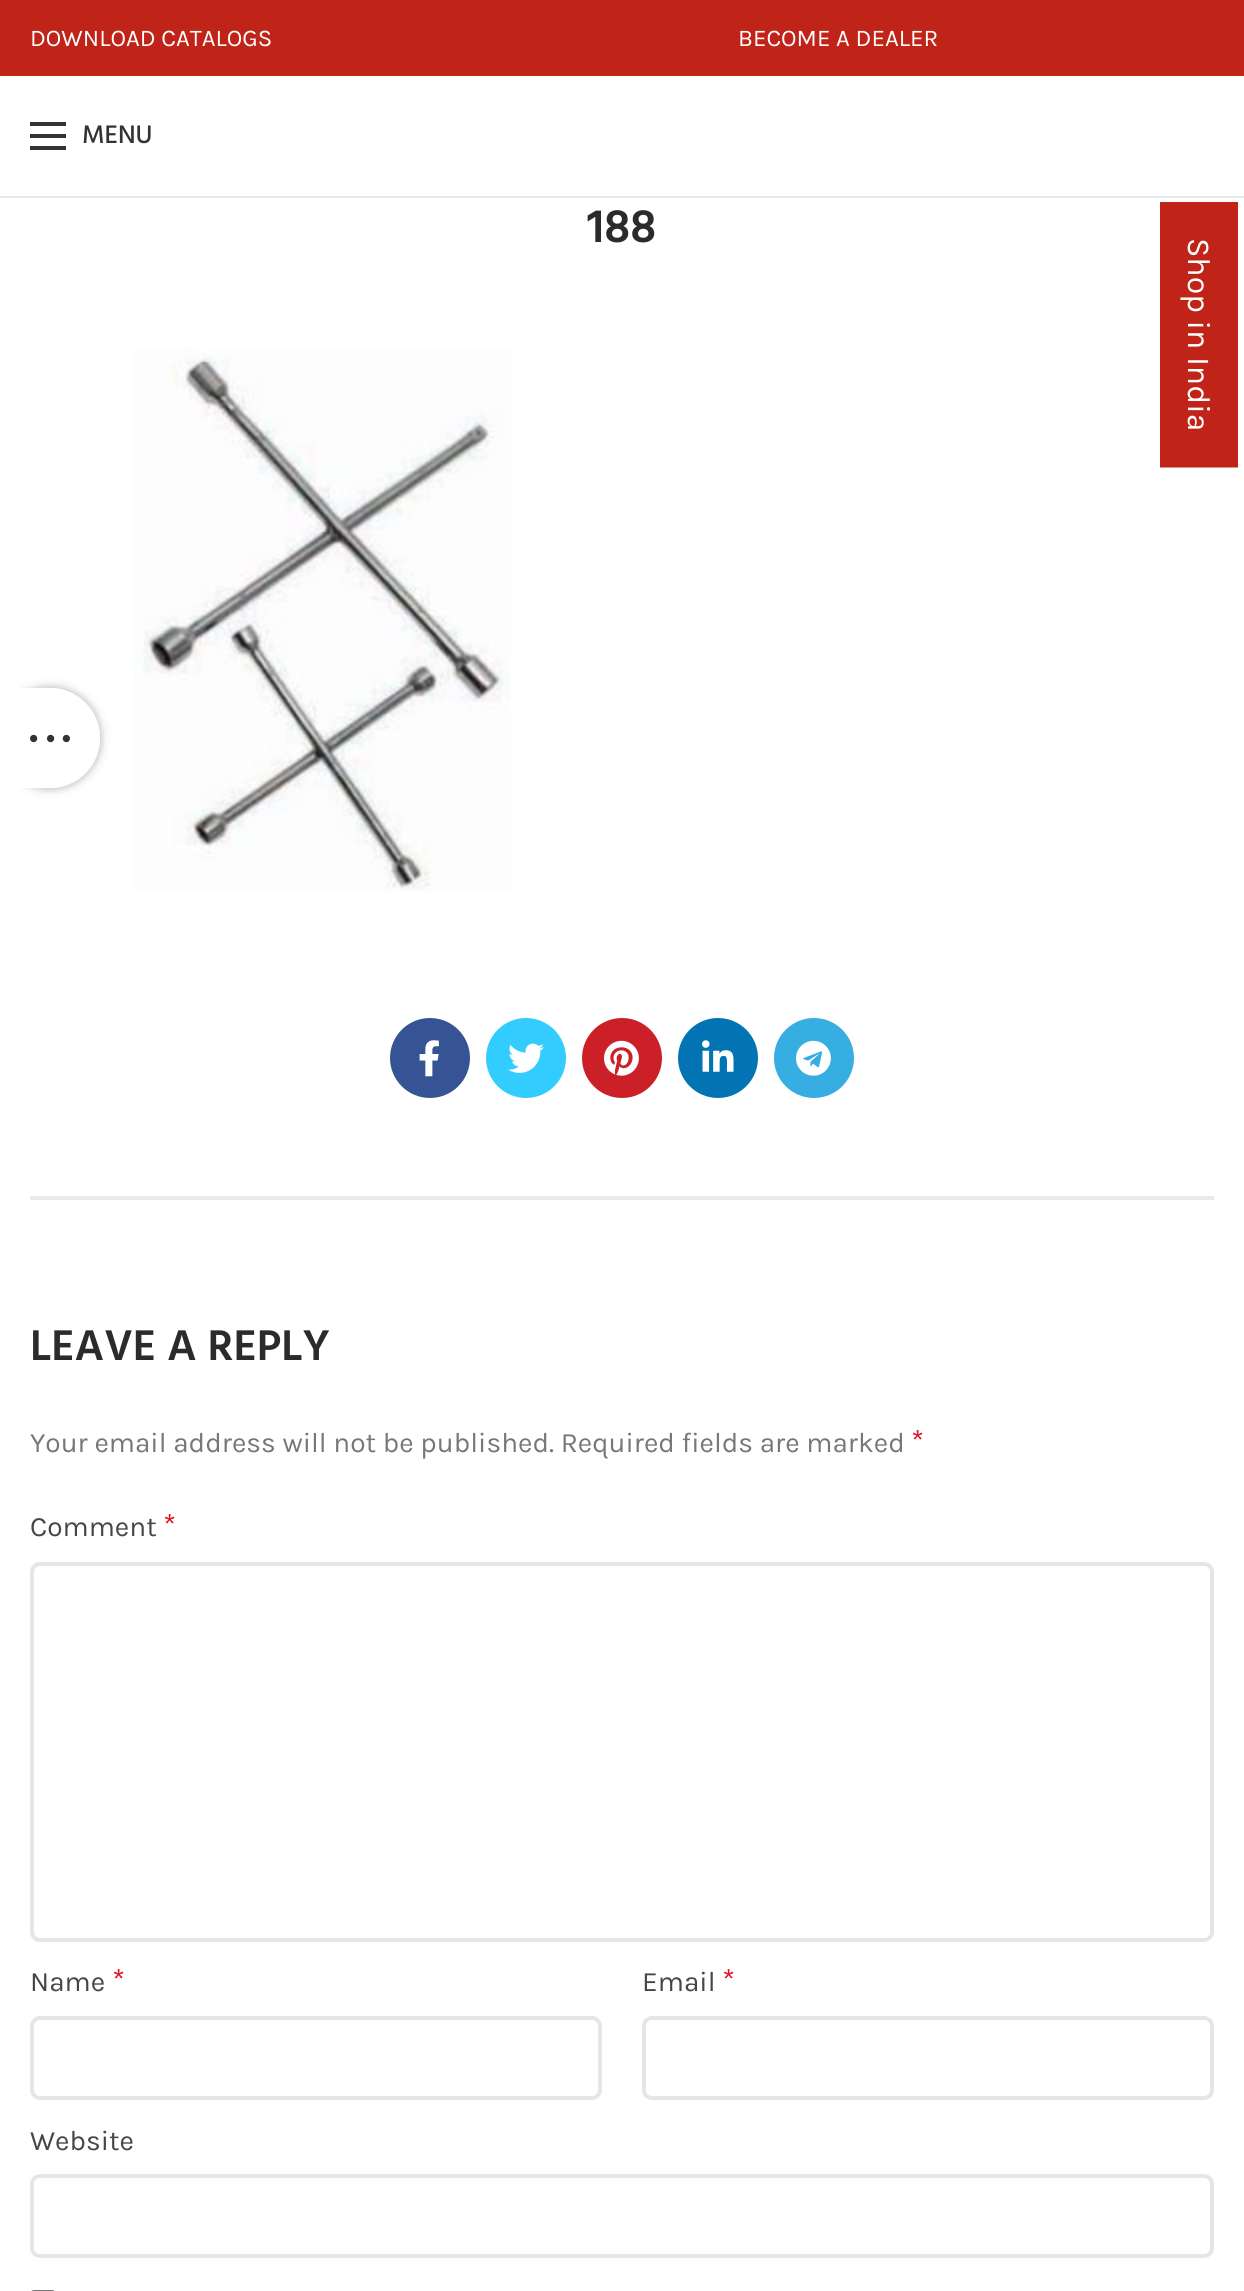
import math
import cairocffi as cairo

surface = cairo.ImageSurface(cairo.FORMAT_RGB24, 1244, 2291)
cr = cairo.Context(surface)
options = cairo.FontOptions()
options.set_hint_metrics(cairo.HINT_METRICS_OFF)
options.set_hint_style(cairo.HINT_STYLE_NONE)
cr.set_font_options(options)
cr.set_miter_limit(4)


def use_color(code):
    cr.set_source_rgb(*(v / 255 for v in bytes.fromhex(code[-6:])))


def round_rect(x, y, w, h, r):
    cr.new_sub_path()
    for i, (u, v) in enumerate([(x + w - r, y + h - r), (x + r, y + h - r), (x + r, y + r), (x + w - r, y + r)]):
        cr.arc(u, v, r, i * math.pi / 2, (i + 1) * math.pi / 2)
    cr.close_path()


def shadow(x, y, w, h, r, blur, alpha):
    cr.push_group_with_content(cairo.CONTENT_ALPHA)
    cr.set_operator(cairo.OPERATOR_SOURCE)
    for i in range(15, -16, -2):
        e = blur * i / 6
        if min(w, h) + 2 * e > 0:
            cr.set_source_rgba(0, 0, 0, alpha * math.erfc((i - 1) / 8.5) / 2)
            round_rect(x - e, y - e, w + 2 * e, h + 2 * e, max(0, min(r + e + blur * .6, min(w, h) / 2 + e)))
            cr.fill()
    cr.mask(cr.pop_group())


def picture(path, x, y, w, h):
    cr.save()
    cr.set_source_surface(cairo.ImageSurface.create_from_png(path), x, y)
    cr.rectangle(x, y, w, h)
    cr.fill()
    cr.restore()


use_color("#ffffff")
cr.paint()
use_color("#c02419")
cr.rectangle(0, 0, 1244, 76)
cr.fill()
cr.select_font_face("Karla")
cr.set_font_size(24)
use_color("#ffffff")
cr.move_to(30, 46)
cr.show_text("DOWNLOAD CATALOGS")
cr.move_to(738, 46)
cr.show_text("BECOME A DEALER")
use_color("#e8e8e8")
cr.rectangle(0, 196, 1244, 2)
cr.fill()
use_color("#333333")
cr.rectangle(30, 134, 36, 4)
cr.fill()
cr.rectangle(30, 122, 36, 4)
cr.fill()
cr.rectangle(30, 146, 36, 4)
cr.fill()
cr.select_font_face("Hind Medium")
cr.set_font_size(26)
cr.move_to(82, 143)
cr.show_text("MENU")
cr.select_font_face("Hind SemiBold")
cr.set_font_size(48)
use_color("#2d2a2a")
cr.move_to(587, 242)
cr.show_text("188")
picture("img1.png", 134, 349, 377, 542)
use_color("#365493")
cr.arc(430, 1058, 40, 0, 2 * math.pi)
cr.fill()
picture("img2.png", 419, 1040, 20, 37)
use_color("#33ccff")
cr.arc(526, 1058, 40, 0, 2 * math.pi)
cr.fill()
picture("img3.png", 508, 1043, 36, 30)
use_color("#cb2027")
cr.arc(622, 1058, 40, 0, 2 * math.pi)
cr.fill()
picture("img4.png", 604, 1040, 35, 36)
use_color("#0274b3")
cr.arc(718, 1058, 40, 0, 2 * math.pi)
cr.fill()
picture("img5.png", 702, 1040, 32, 32)
use_color("#37aee2")
cr.arc(814, 1058, 40, 0, 2 * math.pi)
cr.fill()
picture("img6.png", 796, 1040, 35, 36)
use_color("#eaeaea")
cr.rectangle(30, 1196, 1184, 4)
cr.fill()
cr.set_font_size(44)
use_color("#2d2a2a")
cr.move_to(30, 1360)
cr.show_text("LEAVE A REPLY")
cr.select_font_face("Karla")
cr.set_font_size(28)
use_color("#777777")
cr.move_to(30, 1452)
cr.show_text("Your email address will not be published. Required fields are marked")
cr.set_font_size(32)
use_color("#e01020")
cr.move_to(911, 1452)
cr.show_text("*")
cr.set_font_size(28)
use_color("#464646")
cr.move_to(30, 1536)
cr.show_text("Comment")
cr.set_font_size(32)
use_color("#e01020")
cr.move_to(163, 1536)
cr.show_text("*")
round_rect(32, 1564, 1180, 376, 8)
use_color("#e6e6e6")
cr.set_line_width(4)
cr.stroke()
cr.set_font_size(28)
use_color("#464646")
cr.move_to(30, 1991)
cr.show_text("Name")
cr.set_font_size(32)
use_color("#e01020")
cr.move_to(112, 1991)
cr.show_text("*")
round_rect(32, 2018, 568, 80, 8)
use_color("#e6e6e6")
cr.stroke()
cr.set_font_size(28)
use_color("#464646")
cr.move_to(642, 1991)
cr.show_text("Email")
cr.set_font_size(32)
use_color("#e01020")
cr.move_to(722, 1991)
cr.show_text("*")
round_rect(644, 2018, 568, 80, 8)
use_color("#e6e6e6")
cr.stroke()
cr.set_font_size(28)
use_color("#464646")
cr.move_to(30, 2150)
cr.show_text("Website")
round_rect(32, 2176, 1180, 80, 8)
use_color("#e6e6e6")
cr.stroke()
round_rect(31, 2291, 24, 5, 3)
use_color("#767676")
cr.set_line_width(2)
cr.stroke()
cr.save()
cr.set_fill_rule(cairo.FILL_RULE_EVEN_ODD)
cr.new_path()
cr.move_to(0, 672)
cr.line_to(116, 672)
cr.line_to(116, 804)
cr.line_to(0, 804)
cr.close_path()
cr.move_to(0, 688)
cr.line_to(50, 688)
cr.curve_to(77.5, 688, 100, 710.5, 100, 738)
cr.curve_to(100, 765.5, 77.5, 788, 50, 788)
cr.line_to(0, 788)
cr.close_path()
cr.clip()
use_color("#000000")
shadow(0, 688, 100, 100, 50, 5, 0.17)
cr.restore()
cr.set_source_rgba(1, 1, 1, 0.9)
cr.new_path()
cr.move_to(0, 688)
cr.line_to(50, 688)
cr.curve_to(77.5, 688, 100, 710.5, 100, 738)
cr.curve_to(100, 765.5, 77.5, 788, 50, 788)
cr.line_to(0, 788)
cr.close_path()
cr.fill()
picture("img7.png", 30, 734, 40, 9)
use_color("#c02419")
cr.rectangle(1160, 202, 78, 266)
cr.fill()
cr.new_path()
cr.move_to(1239, 201)
cr.line_to(1239, 468.5)
cr.line_to(1159, 468.5)
cr.line_to(1159, 201)
cr.close_path()
use_color("#ffffff")
cr.stroke()
cr.set_font_size(32)
cr.save()
cr.translate(1188, 238)
cr.rotate(90 * math.pi / 180)
cr.move_to(0, 0)
cr.show_text("Shop in India")
cr.restore()
cr.save()
cr.set_fill_rule(cairo.FILL_RULE_EVEN_ODD)
cr.new_path()
cr.move_to(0, 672)
cr.line_to(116, 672)
cr.line_to(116, 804)
cr.line_to(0, 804)
cr.close_path()
cr.move_to(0, 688)
cr.line_to(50, 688)
cr.curve_to(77.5, 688, 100, 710.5, 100, 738)
cr.curve_to(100, 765.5, 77.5, 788, 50, 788)
cr.line_to(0, 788)
cr.close_path()
cr.clip()
use_color("#000000")
shadow(0, 688, 100, 100, 50, 5, 0.17)
cr.restore()
cr.set_source_rgba(1, 1, 1, 0.9)
cr.new_path()
cr.move_to(0, 688)
cr.line_to(50, 688)
cr.curve_to(77.5, 688, 100, 710.5, 100, 738)
cr.curve_to(100, 765.5, 77.5, 788, 50, 788)
cr.line_to(0, 788)
cr.close_path()
cr.fill()
picture("img8.png", 30, 734, 40, 9)
surface.write_to_png("result.png")
